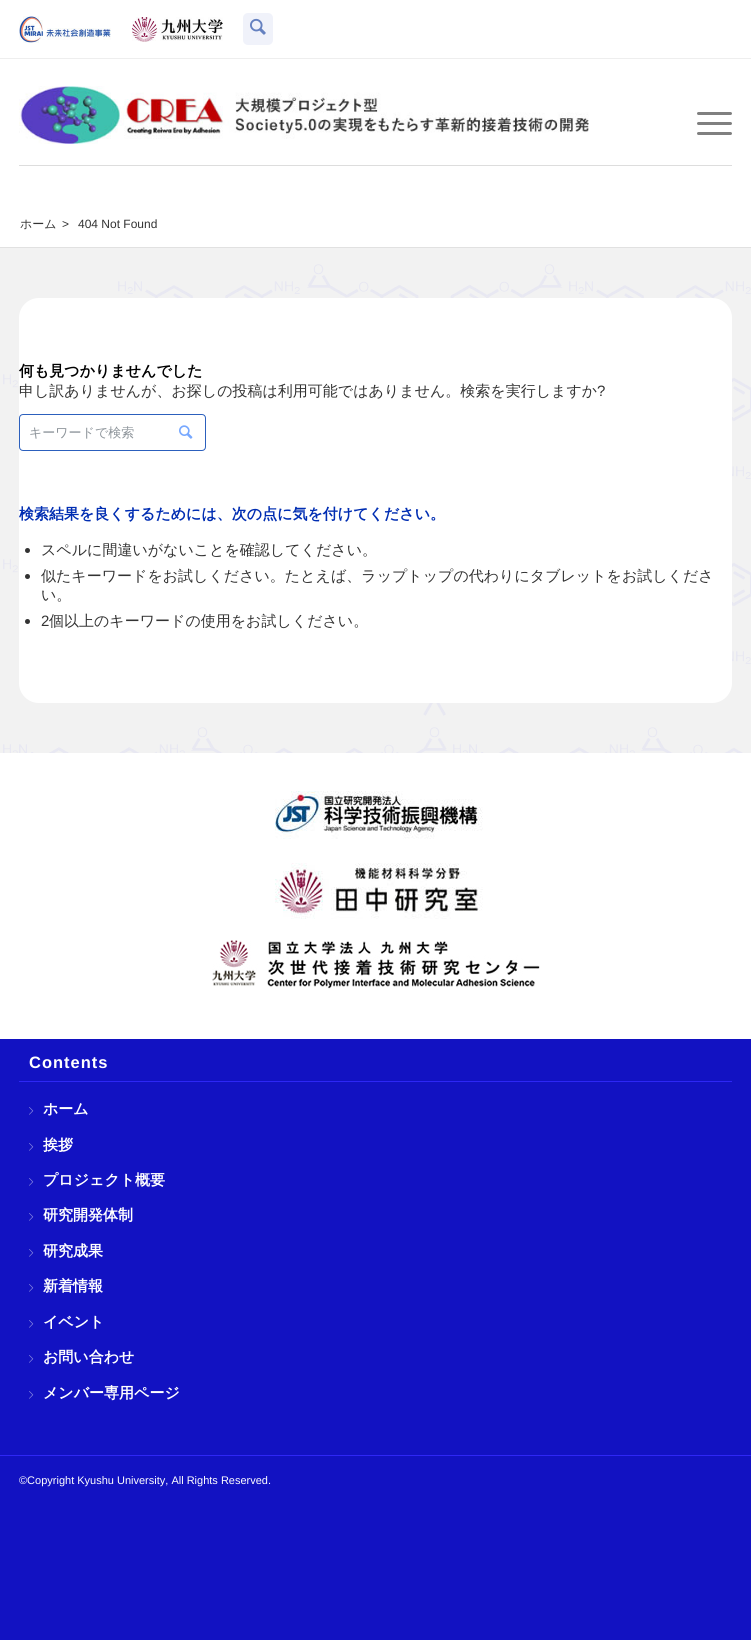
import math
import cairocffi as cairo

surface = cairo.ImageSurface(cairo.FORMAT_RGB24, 751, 1640)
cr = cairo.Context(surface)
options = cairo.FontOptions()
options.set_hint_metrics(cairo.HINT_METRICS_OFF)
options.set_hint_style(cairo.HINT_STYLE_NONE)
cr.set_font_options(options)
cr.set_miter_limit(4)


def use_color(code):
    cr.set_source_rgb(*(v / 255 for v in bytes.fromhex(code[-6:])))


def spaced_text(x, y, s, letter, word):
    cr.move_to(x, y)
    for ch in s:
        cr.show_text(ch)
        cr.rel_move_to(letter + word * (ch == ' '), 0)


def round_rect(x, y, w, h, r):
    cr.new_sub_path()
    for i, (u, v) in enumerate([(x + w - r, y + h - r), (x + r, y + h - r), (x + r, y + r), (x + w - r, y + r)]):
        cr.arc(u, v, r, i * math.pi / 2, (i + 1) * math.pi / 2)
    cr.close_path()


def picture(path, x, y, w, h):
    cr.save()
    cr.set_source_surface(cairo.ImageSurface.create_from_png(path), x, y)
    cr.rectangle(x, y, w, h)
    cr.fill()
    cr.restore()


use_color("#1212c2")
cr.paint()
use_color("#ffffff")
cr.rectangle(0, 0, 751, 1039)
cr.fill()
use_color("#eeeeee")
cr.rectangle(0, 58, 751, 1)
cr.fill()
picture("img1.png", 19, 16, 92, 27)
picture("img2.png", 132, 17, 91, 25)
use_color("#f0f2fa")
round_rect(243, 13, 30, 32, 5)
cr.fill()
picture("img3.png", 250, 18, 16, 17)
use_color("#dddddd")
cr.rectangle(19, 165, 713, 1)
cr.fill()
picture("img4.png", 19, 86, 570, 58)
use_color("#808080")
round_rect(697, 122, 35, 3, 1.5)
cr.fill()
round_rect(697, 112, 35, 3, 1.5)
cr.fill()
round_rect(697, 132, 35, 3, 1.5)
cr.fill()
cr.select_font_face("WenQuanYi Zen Hei Medium")
cr.set_font_size(12)
use_color("#333333")
cr.move_to(20, 228)
cr.show_text("ホーム")
cr.select_font_face("Liberation Sans")
cr.move_to(62, 228)
cr.show_text(">")
cr.move_to(78, 228)
cr.show_text("404 Not Found")
picture("img5.png", 0, 248, 751, 505)
use_color("#e1e1e1")
cr.rectangle(0, 247, 751, 1)
cr.fill()
use_color("#ffffff")
round_rect(19, 298, 713, 405, 20)
cr.fill()
cr.select_font_face("WenQuanYi Zen Hei", cairo.FONT_SLANT_NORMAL, cairo.FONT_WEIGHT_BOLD)
cr.set_font_size(15)
use_color("#000000")
cr.move_to(19, 376)
cr.show_text("何も見つかりませんでした")
cr.select_font_face("WenQuanYi Zen Hei Medium")
use_color("#333333")
cr.move_to(19, 396)
cr.show_text("申し訳ありませんが、お探しの投稿は利用可能ではありません。検索を実行しますか")
cr.select_font_face("Liberation Sans")
cr.move_to(597, 396)
cr.show_text("?")
round_rect(19.5, 414.5, 186, 36, 3.5)
use_color("#2c60bd")
cr.set_line_width(1)
cr.stroke()
cr.select_font_face("WenQuanYi Zen Hei Medium")
cr.set_font_size(13)
use_color("#8d949a")
cr.move_to(29, 437)
cr.show_text("キーワードで検索")
picture("img6.png", 179, 425, 14, 14)
cr.select_font_face("WenQuanYi Zen Hei", cairo.FONT_SLANT_NORMAL, cairo.FONT_WEIGHT_BOLD)
cr.set_font_size(15)
use_color("#002db2")
cr.move_to(19, 519)
cr.show_text("検索結果を良くするためには、次の点に気を付けてください。")
use_color("#333333")
cr.new_path()
cr.arc(27.5, 550.5, 2.5, 0, 2 * math.pi)
cr.fill()
cr.select_font_face("WenQuanYi Zen Hei Medium")
cr.move_to(41, 555)
cr.show_text("スペルに間違いがないことを確認してください。")
cr.new_path()
cr.arc(27.5, 576.5, 2.5, 0, 2 * math.pi)
cr.fill()
cr.move_to(41, 581)
cr.show_text("似たキーワードをお試しください。たとえば、ラップトップの代わりにタブレットをお試しくださ")
cr.move_to(41, 600)
cr.show_text("い。")
cr.new_path()
cr.arc(27.5, 621.5, 2.5, 0, 2 * math.pi)
cr.fill()
cr.select_font_face("Liberation Sans")
cr.move_to(41, 626)
cr.show_text("2")
cr.select_font_face("WenQuanYi Zen Hei Medium")
cr.move_to(49, 626)
cr.show_text("個以上のキーワードの使用をお試しください。")
picture("img7.png", 275, 791, 208, 48)
picture("img8.png", 275, 863, 208, 56)
picture("img9.png", 212, 940, 328, 49)
cr.select_font_face("Liberation Sans", cairo.FONT_SLANT_NORMAL, cairo.FONT_WEIGHT_BOLD)
cr.set_font_size(16.5)
use_color("#ffffff")
spaced_text(29, 1068, "Contents", 1, 0)
use_color("#2d27f5")
cr.rectangle(19, 1081, 713, 1)
cr.fill()
picture("img10.png", 29, 1107, 5, 8)
cr.select_font_face("WenQuanYi Zen Hei", cairo.FONT_SLANT_NORMAL, cairo.FONT_WEIGHT_BOLD)
cr.set_font_size(15)
use_color("#ffffff")
cr.move_to(43, 1114)
cr.show_text("ホーム")
picture("img10.png", 29, 1143, 5, 8)
cr.move_to(43, 1150)
cr.show_text("挨拶")
picture("img10.png", 29, 1178, 5, 8)
cr.move_to(43, 1185)
cr.show_text("プロジェクト概要")
picture("img10.png", 29, 1213, 5, 8)
cr.move_to(43, 1220)
cr.show_text("研究開発体制")
picture("img10.png", 29, 1249, 5, 8)
cr.move_to(43, 1256)
cr.show_text("研究成果")
picture("img10.png", 29, 1284, 5, 8)
cr.move_to(43, 1291)
cr.show_text("新着情報")
picture("img10.png", 29, 1320, 5, 8)
cr.move_to(43, 1327)
cr.show_text("イベント")
picture("img10.png", 29, 1355, 5, 8)
cr.move_to(43, 1362)
cr.show_text("お問い合わせ")
picture("img10.png", 29, 1391, 5, 8)
cr.move_to(43, 1398)
cr.show_text("メンバー専用ページ")
use_color("#2e27f5")
cr.rectangle(0, 1455, 751, 1)
cr.fill()
cr.select_font_face("Liberation Sans")
cr.set_font_size(11)
use_color("#ffffff")
cr.move_to(19, 1484)
cr.show_text("©Copyright Kyushu University, All Rights Reserved.")
surface.write_to_png("result.png")
